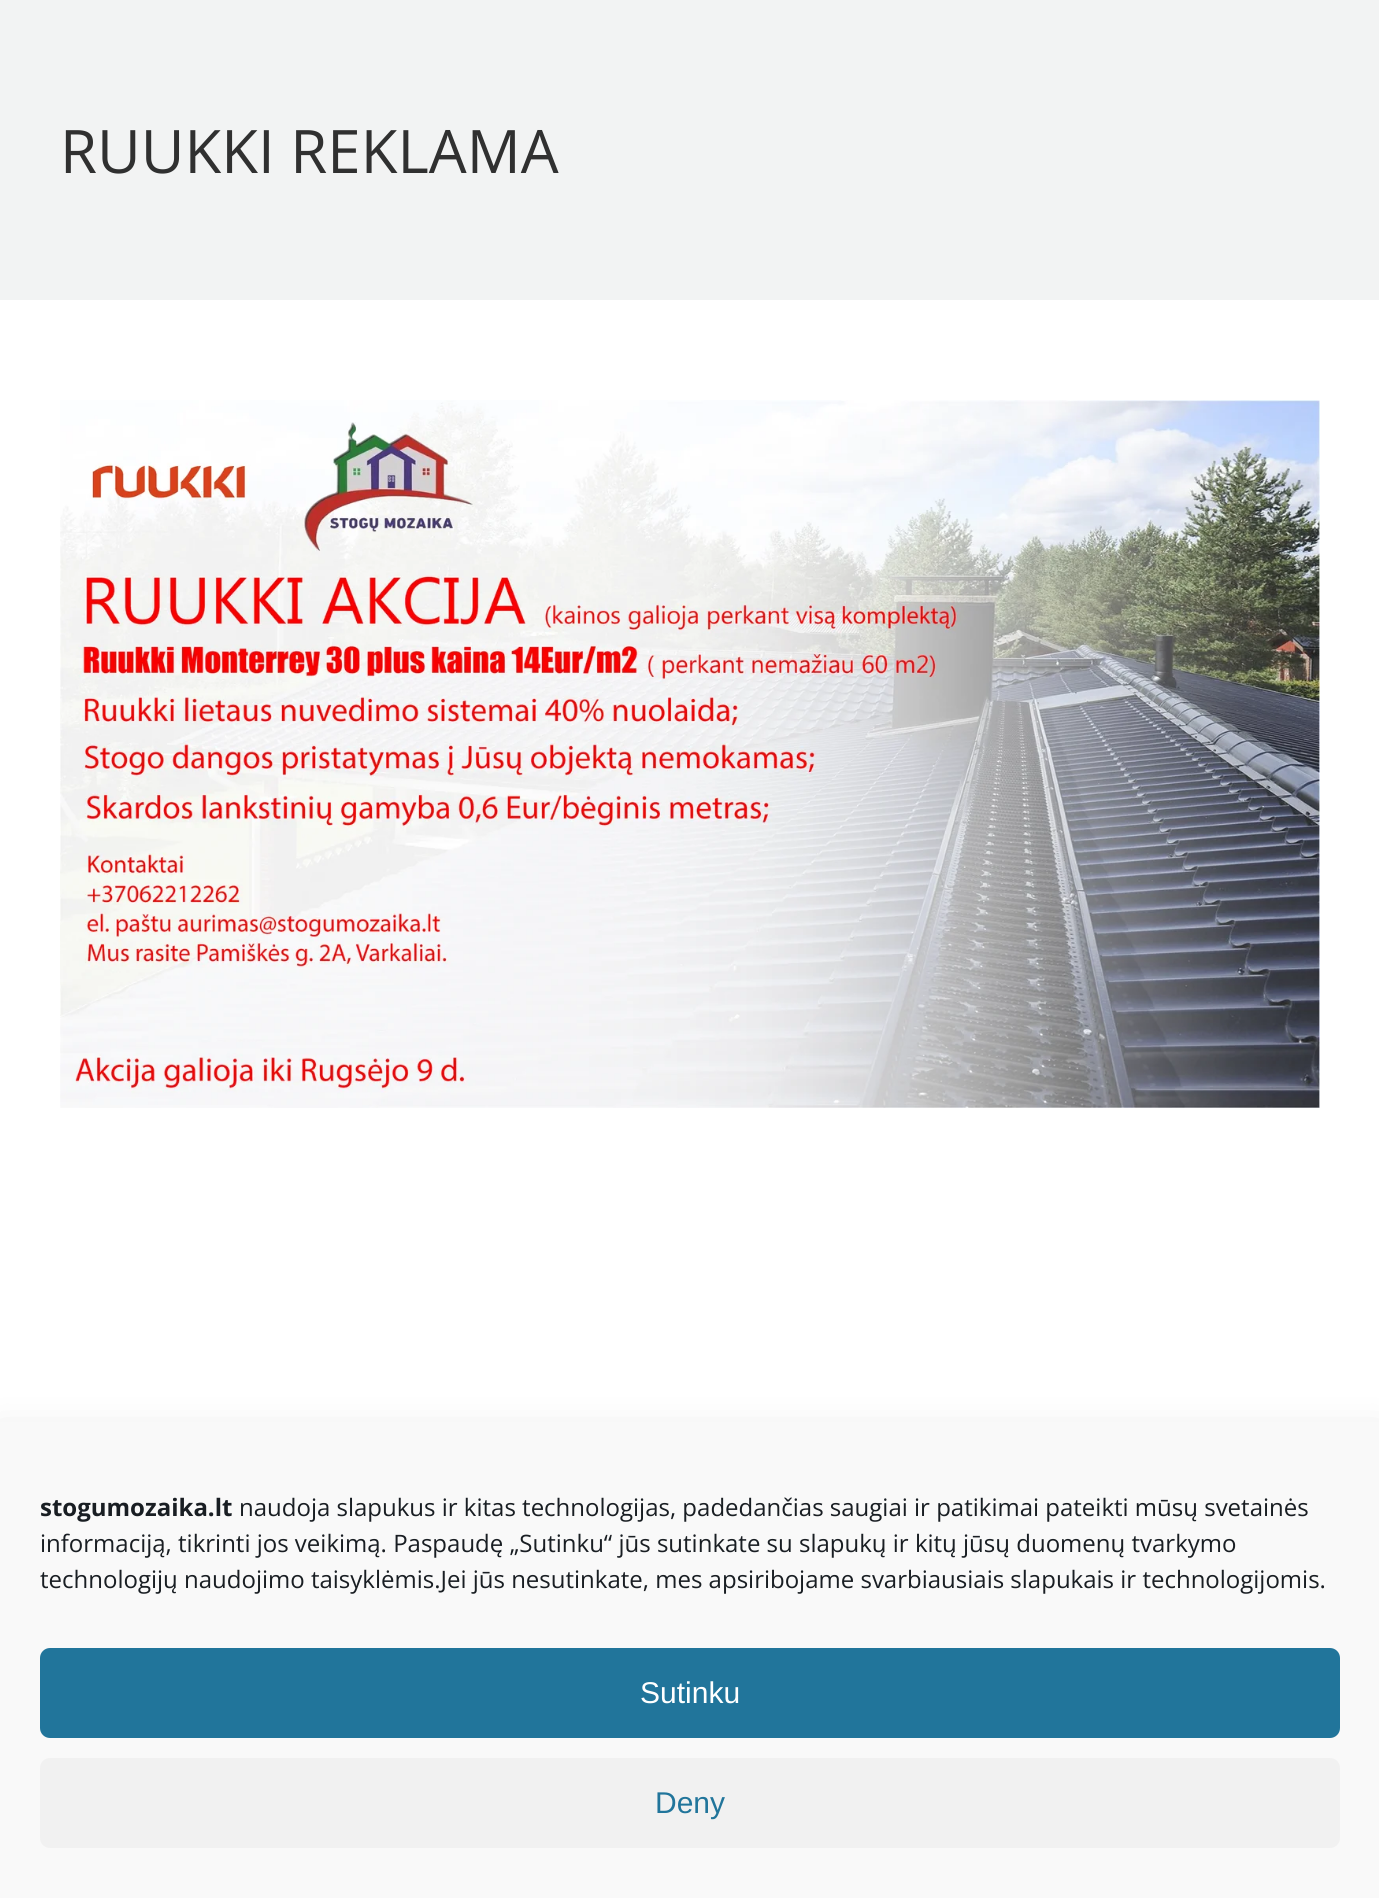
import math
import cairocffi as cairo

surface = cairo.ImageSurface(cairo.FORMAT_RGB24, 1379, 1898)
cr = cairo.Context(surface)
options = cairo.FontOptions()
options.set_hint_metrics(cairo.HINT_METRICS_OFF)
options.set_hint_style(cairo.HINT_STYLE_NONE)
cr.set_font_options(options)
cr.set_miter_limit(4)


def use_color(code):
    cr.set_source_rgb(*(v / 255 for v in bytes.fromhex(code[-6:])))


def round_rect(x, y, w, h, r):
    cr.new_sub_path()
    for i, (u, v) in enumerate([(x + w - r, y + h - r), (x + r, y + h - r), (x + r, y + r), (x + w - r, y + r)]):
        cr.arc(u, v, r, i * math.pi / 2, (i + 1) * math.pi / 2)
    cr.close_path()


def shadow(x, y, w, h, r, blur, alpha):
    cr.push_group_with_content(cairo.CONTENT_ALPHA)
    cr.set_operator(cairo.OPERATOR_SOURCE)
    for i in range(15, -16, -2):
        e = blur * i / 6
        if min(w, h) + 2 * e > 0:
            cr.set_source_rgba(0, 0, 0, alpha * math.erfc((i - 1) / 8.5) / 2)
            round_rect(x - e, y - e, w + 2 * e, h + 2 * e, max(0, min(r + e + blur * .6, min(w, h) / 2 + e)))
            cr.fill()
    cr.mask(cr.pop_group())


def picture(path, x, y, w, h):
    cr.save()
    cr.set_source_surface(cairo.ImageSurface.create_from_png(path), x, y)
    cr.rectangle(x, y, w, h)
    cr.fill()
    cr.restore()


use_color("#ffffff")
cr.paint()
use_color("#f2f3f3")
cr.rectangle(0, 0, 1379, 300)
cr.fill()
cr.select_font_face("Open Sans")
cr.set_font_size(60)
use_color("#303030")
cr.move_to(60, 173)
cr.show_text("RUUKKI REKLAMA")
picture("img1.png", 60, 400, 1260, 708)
use_color("#000000")
shadow(0, 1440, 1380, 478, 0, 20, 0.19)
use_color("#f9f9f9")
cr.rectangle(0, 1422, 1379, 476)
cr.fill()
cr.select_font_face("Open Sans", cairo.FONT_SLANT_NORMAL, cairo.FONT_WEIGHT_BOLD)
cr.set_font_size(24)
use_color("#191e23")
cr.move_to(40, 1516)
cr.show_text("stogumozaika.lt")
cr.select_font_face("Open Sans")
cr.move_to(239, 1516)
cr.show_text("naudoja slapukus ir kitas technologijas, padedančias saugiai ir patikimai pateikti mūsų svetainės")
cr.move_to(40, 1552)
cr.show_text("informaciją, tikrinti jos veikimą. Paspaudę „Sutinku“ jūs sutinkate su slapukų ir kitų jūsų duomenų tvarkymo")
cr.move_to(40, 1588)
cr.show_text("technologijų naudojimo taisyklėmis.Jei jūs nesutinkate, mes apsiribojame svarbiausiais slapukais ir technologijomis.")
use_color("#21759b")
round_rect(41, 1649, 1298, 88, 9)
cr.fill_preserve()
cr.stroke()
cr.select_font_face("Liberation Sans")
cr.set_font_size(30)
use_color("#ffffff")
cr.move_to(640, 1703)
cr.show_text("Sutinku")
use_color("#f1f1f1")
round_rect(40, 1758, 1300, 90, 10)
cr.fill()
use_color("#21759b")
cr.move_to(655, 1813)
cr.show_text("Deny")
surface.write_to_png("result.png")
